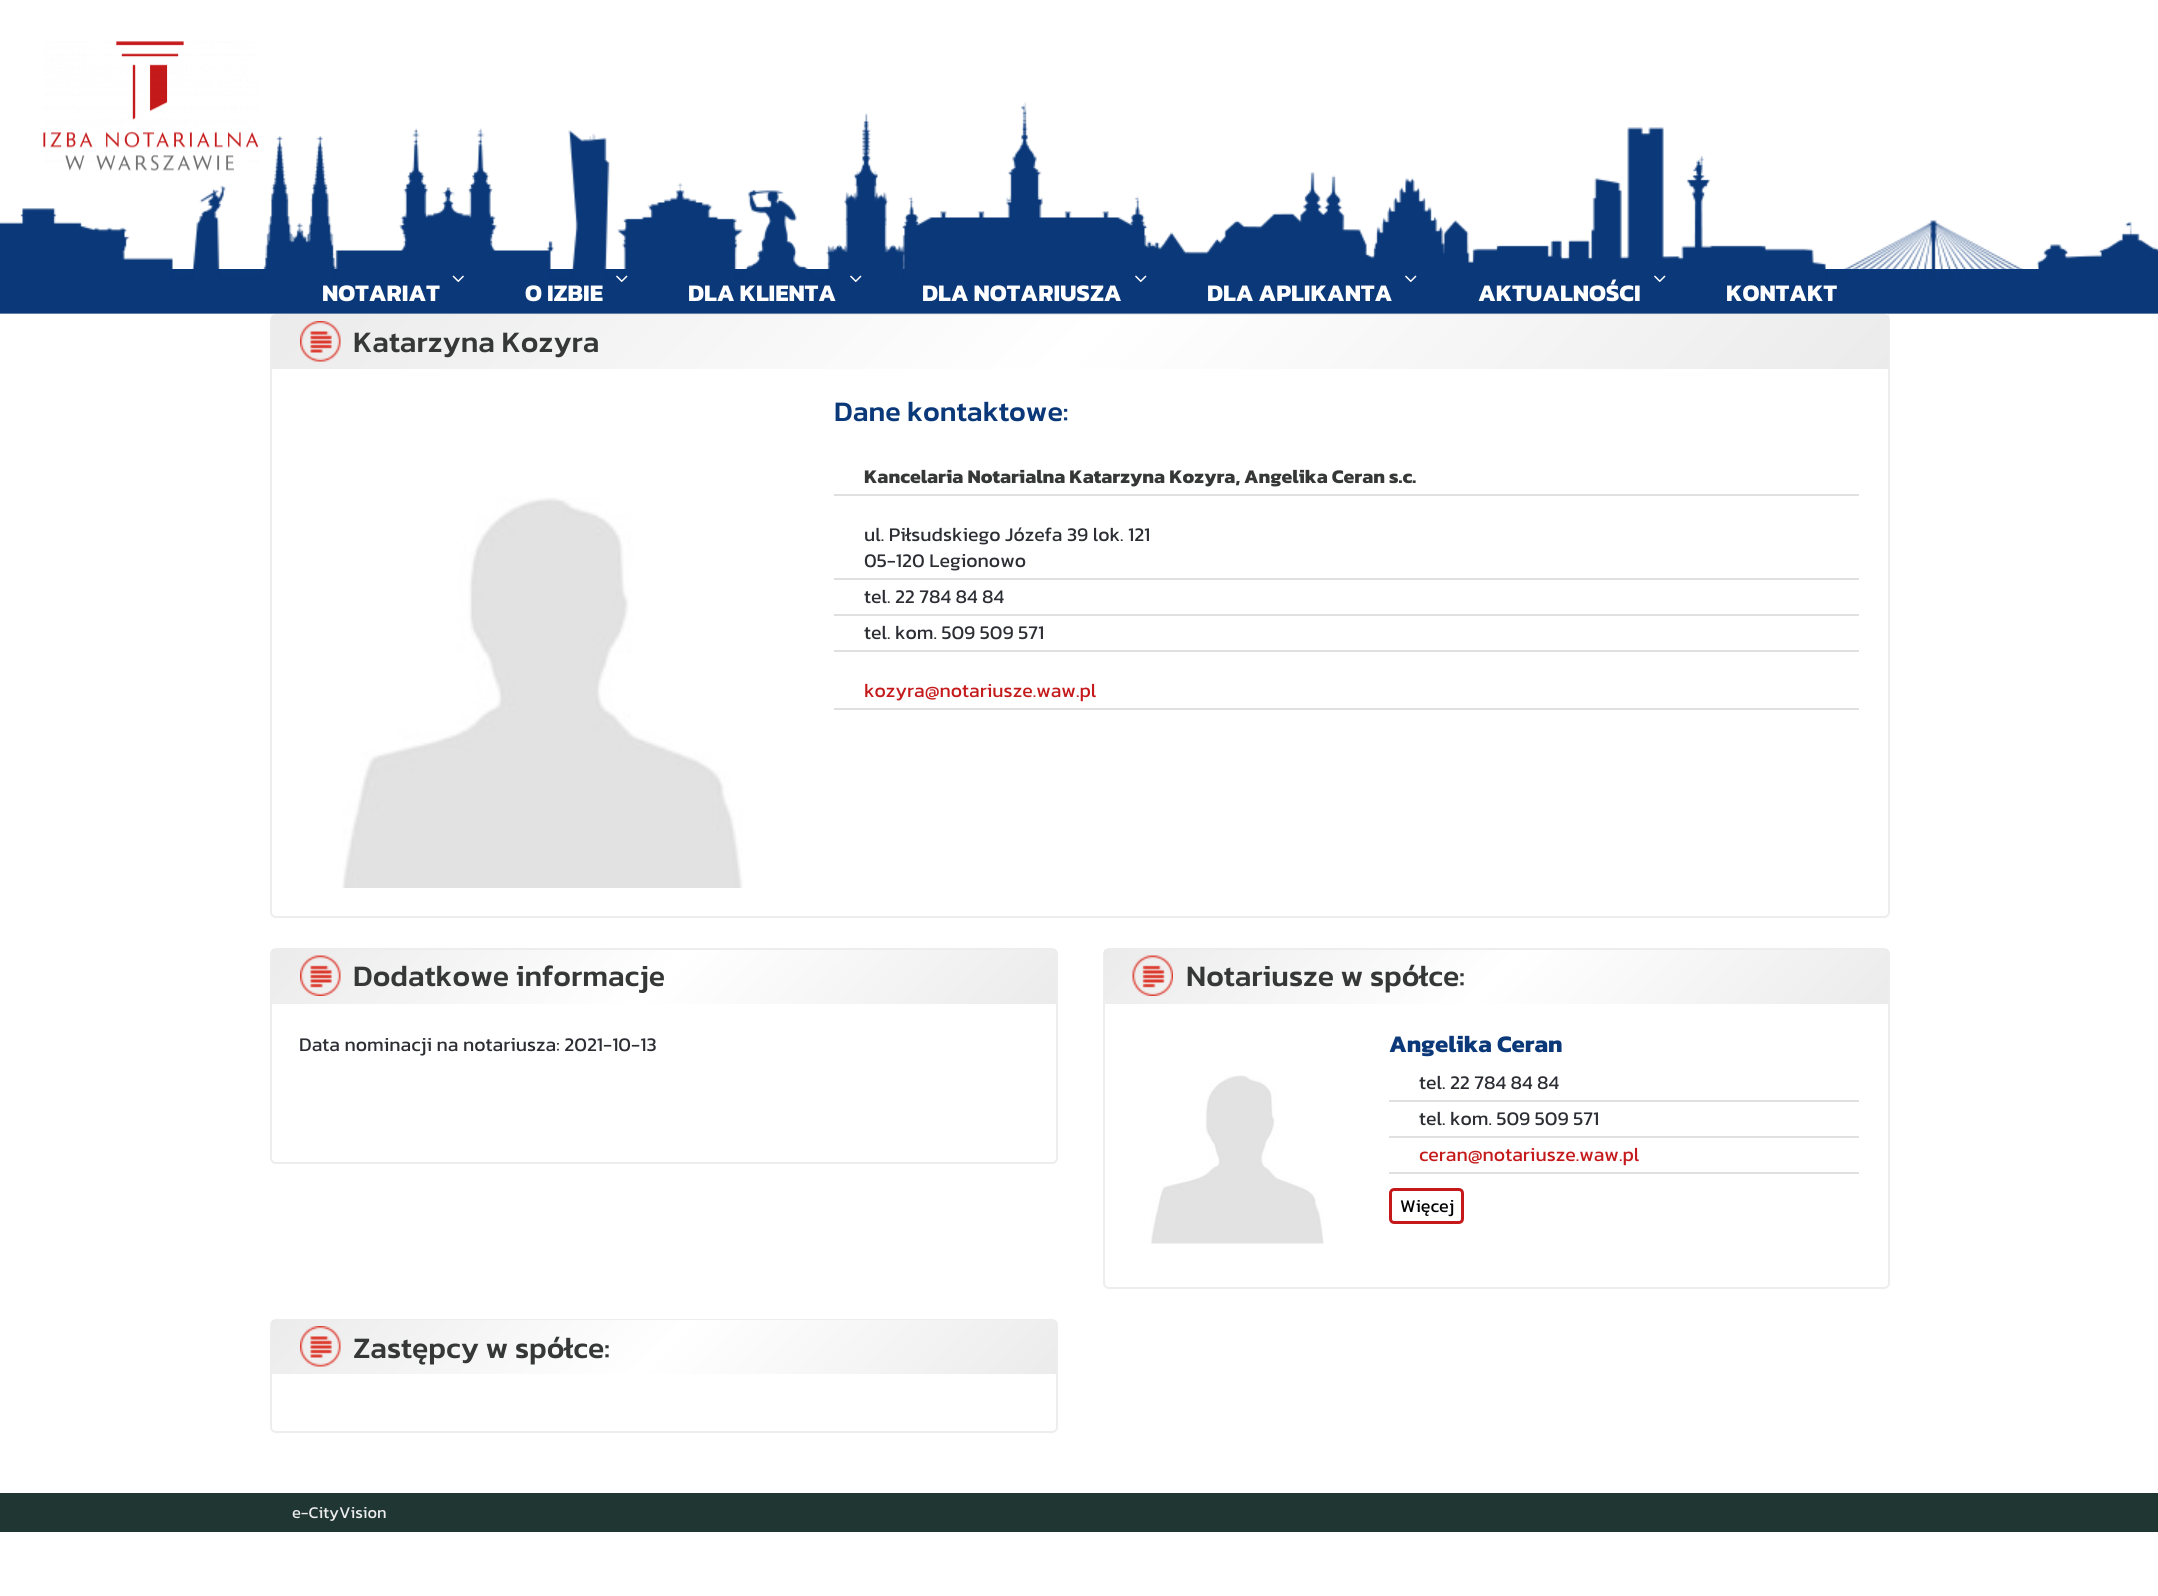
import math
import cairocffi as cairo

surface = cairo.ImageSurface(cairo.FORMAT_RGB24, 2158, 1596)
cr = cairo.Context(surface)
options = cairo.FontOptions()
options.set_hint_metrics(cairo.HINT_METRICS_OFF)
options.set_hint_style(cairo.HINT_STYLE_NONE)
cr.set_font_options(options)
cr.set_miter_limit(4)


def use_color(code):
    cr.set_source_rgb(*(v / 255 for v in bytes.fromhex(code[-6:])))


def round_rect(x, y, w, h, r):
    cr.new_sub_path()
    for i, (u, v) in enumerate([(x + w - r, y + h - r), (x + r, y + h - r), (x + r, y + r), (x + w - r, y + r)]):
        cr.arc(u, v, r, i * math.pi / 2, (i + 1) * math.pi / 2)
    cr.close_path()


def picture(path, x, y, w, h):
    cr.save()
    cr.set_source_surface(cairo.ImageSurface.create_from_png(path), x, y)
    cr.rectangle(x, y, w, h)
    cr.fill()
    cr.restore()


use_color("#ffffff")
cr.paint()
picture("img1.png", 0, 102, 2158, 212)
picture("img2.png", 43, 41, 216, 130)
picture("img3.png", 452, 275, 12, 7)
cr.select_font_face("Kanit", cairo.FONT_SLANT_NORMAL, cairo.FONT_WEIGHT_BOLD)
cr.set_font_size(24)
use_color("#ffffff")
cr.move_to(322, 301)
cr.show_text("NOTARIAT")
picture("img4.png", 616, 275, 12, 7)
cr.move_to(525, 301)
cr.show_text("O IZBIE")
picture("img5.png", 850, 275, 12, 7)
cr.move_to(688, 301)
cr.show_text("DLA KLIENTA")
picture("img5.png", 1135, 275, 12, 7)
cr.move_to(922, 301)
cr.show_text("DLA NOTARIUSZA")
picture("img5.png", 1405, 275, 12, 7)
cr.move_to(1207, 301)
cr.show_text("DLA APLIKANTA")
cr.move_to(1478, 301)
cr.show_text("AKTUALNOŚCI")
picture("img5.png", 1654, 275, 12, 7)
cr.move_to(1726, 301)
cr.show_text("KONTAKT")
round_rect(271, 315, 1618, 602, 5)
use_color("#ededed")
cr.stroke()
gradient = cairo.LinearGradient(662, -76, 1498, 760)
gradient.add_color_stop_rgba(0, 0.922, 0.922, 0.922, 1)
gradient.add_color_stop_rgba(0.5, 1, 1, 1, 1)
gradient.add_color_stop_rgba(1, 0.922, 0.922, 0.922, 1)
cr.set_source(gradient)
cr.rectangle(272, 315, 1617, 54)
cr.fill()
picture("img6.png", 300, 321, 41, 41)
cr.select_font_face("Kanit Medium")
cr.set_font_size(30)
use_color("#363838")
cr.move_to(353, 352)
cr.show_text("Katarzyna Kozyra")
picture("img7.png", 342, 497, 401, 391)
cr.set_font_size(28.5)
use_color("#0a3879")
cr.move_to(834, 421)
cr.show_text("Dane kontaktowe:")
use_color("#e0e0e0")
cr.rectangle(834, 494, 1025, 2)
cr.fill()
cr.select_font_face("Kanit", cairo.FONT_SLANT_NORMAL, cairo.FONT_WEIGHT_BOLD)
cr.set_font_size(19.5)
use_color("#363838")
cr.move_to(864, 483)
cr.show_text("Kancelaria Notarialna Katarzyna Kozyra, Angelika Ceran s.c.")
use_color("#e0e0e0")
cr.rectangle(834, 578, 1025, 2)
cr.fill()
cr.select_font_face("Kanit")
use_color("#2c2e34")
cr.move_to(864, 541)
cr.show_text("ul. Piłsudskiego Józefa 39 lok. 121")
cr.move_to(864, 567)
cr.show_text("05-120 Legionowo")
use_color("#e0e0e0")
cr.rectangle(834, 614, 1025, 2)
cr.fill()
use_color("#2c2e34")
cr.move_to(864, 603)
cr.show_text("tel. 22 784 84 84")
use_color("#e0e0e0")
cr.rectangle(834, 650, 1025, 2)
cr.fill()
use_color("#2c2e34")
cr.move_to(864, 639)
cr.show_text("tel. kom. 509 509 571")
use_color("#e0e0e0")
cr.rectangle(834, 708, 1025, 2)
cr.fill()
use_color("#c51a1b")
cr.move_to(864, 697)
cr.show_text("kozyra@notariusze.waw.pl")
round_rect(271, 949, 786, 214, 5)
use_color("#ededed")
cr.stroke()
gradient = cairo.LinearGradient(454, 767, 873, 1186)
gradient.add_color_stop_rgba(0, 0.922, 0.922, 0.922, 1)
gradient.add_color_stop_rgba(0.5, 1, 1, 1, 1)
gradient.add_color_stop_rgba(1, 0.922, 0.922, 0.922, 1)
cr.set_source(gradient)
cr.rectangle(272, 950, 784, 54)
cr.fill()
picture("img8.png", 300, 955, 41, 41)
cr.select_font_face("Kanit Medium")
cr.set_font_size(30)
use_color("#363838")
cr.move_to(353, 986)
cr.show_text("Dodatkowe informacje")
cr.select_font_face("Kanit")
cr.set_font_size(19.5)
use_color("#2c2e34")
cr.move_to(299, 1051)
cr.show_text("Data nominacji na notariusza: 2021-10-13")
round_rect(1104, 949, 785, 339, 5)
use_color("#ededed")
cr.stroke()
gradient = cairo.LinearGradient(1287, 767, 1706, 1186)
gradient.add_color_stop_rgba(0, 0.922, 0.922, 0.922, 1)
gradient.add_color_stop_rgba(0.5, 1, 1, 1, 1)
gradient.add_color_stop_rgba(1, 0.922, 0.922, 0.922, 1)
cr.set_source(gradient)
cr.rectangle(1104, 950, 784, 54)
cr.fill()
picture("img9.png", 1132, 955, 41, 41)
cr.select_font_face("Kanit Medium")
cr.set_font_size(30)
use_color("#363838")
cr.move_to(1186, 986)
cr.show_text("Notariusze w spółce:")
picture("img10.png", 1151, 1075, 173, 169)
cr.select_font_face("Kanit", cairo.FONT_SLANT_NORMAL, cairo.FONT_WEIGHT_BOLD)
cr.set_font_size(24)
use_color("#0a3879")
cr.move_to(1389, 1052)
cr.show_text("Angelika Ceran")
use_color("#e0e0e0")
cr.rectangle(1389, 1100, 470, 2)
cr.fill()
cr.select_font_face("Kanit")
cr.set_font_size(19.5)
use_color("#2c2e34")
cr.move_to(1419, 1089)
cr.show_text("tel. 22 784 84 84")
use_color("#e0e0e0")
cr.rectangle(1389, 1136, 470, 2)
cr.fill()
use_color("#2c2e34")
cr.move_to(1419, 1125)
cr.show_text("tel. kom. 509 509 571")
use_color("#e0e0e0")
cr.rectangle(1389, 1172, 470, 2)
cr.fill()
use_color("#c51a1b")
cr.move_to(1419, 1161)
cr.show_text("ceran@notariusze.waw.pl")
round_rect(1390.5, 1189.5, 72, 33, 3.5)
use_color("#c4181a")
cr.set_line_width(3)
cr.stroke()
cr.set_font_size(18)
use_color("#000000")
cr.move_to(1400, 1212)
cr.show_text("Więcej")
round_rect(271, 1320, 786, 112, 5)
use_color("#ededed")
cr.set_line_width(2)
cr.stroke()
gradient = cairo.LinearGradient(454, 1137, 873, 1557)
gradient.add_color_stop_rgba(0, 0.922, 0.922, 0.922, 1)
gradient.add_color_stop_rgba(0.5, 1, 1, 1, 1)
gradient.add_color_stop_rgba(1, 0.922, 0.922, 0.922, 1)
cr.set_source(gradient)
cr.rectangle(272, 1320, 784, 54)
cr.fill()
picture("img11.png", 300, 1326, 41, 41)
cr.select_font_face("Kanit Medium")
cr.set_font_size(30)
use_color("#363838")
cr.move_to(353, 1358)
cr.show_text("Zastępcy w spółce:")
use_color("#1f3632")
cr.rectangle(0, 1493, 2158, 39)
cr.fill()
cr.select_font_face("Kanit")
cr.set_font_size(16.5)
use_color("#ededed")
cr.move_to(292, 1518)
cr.show_text("e-CityVision")
surface.write_to_png("result.png")
